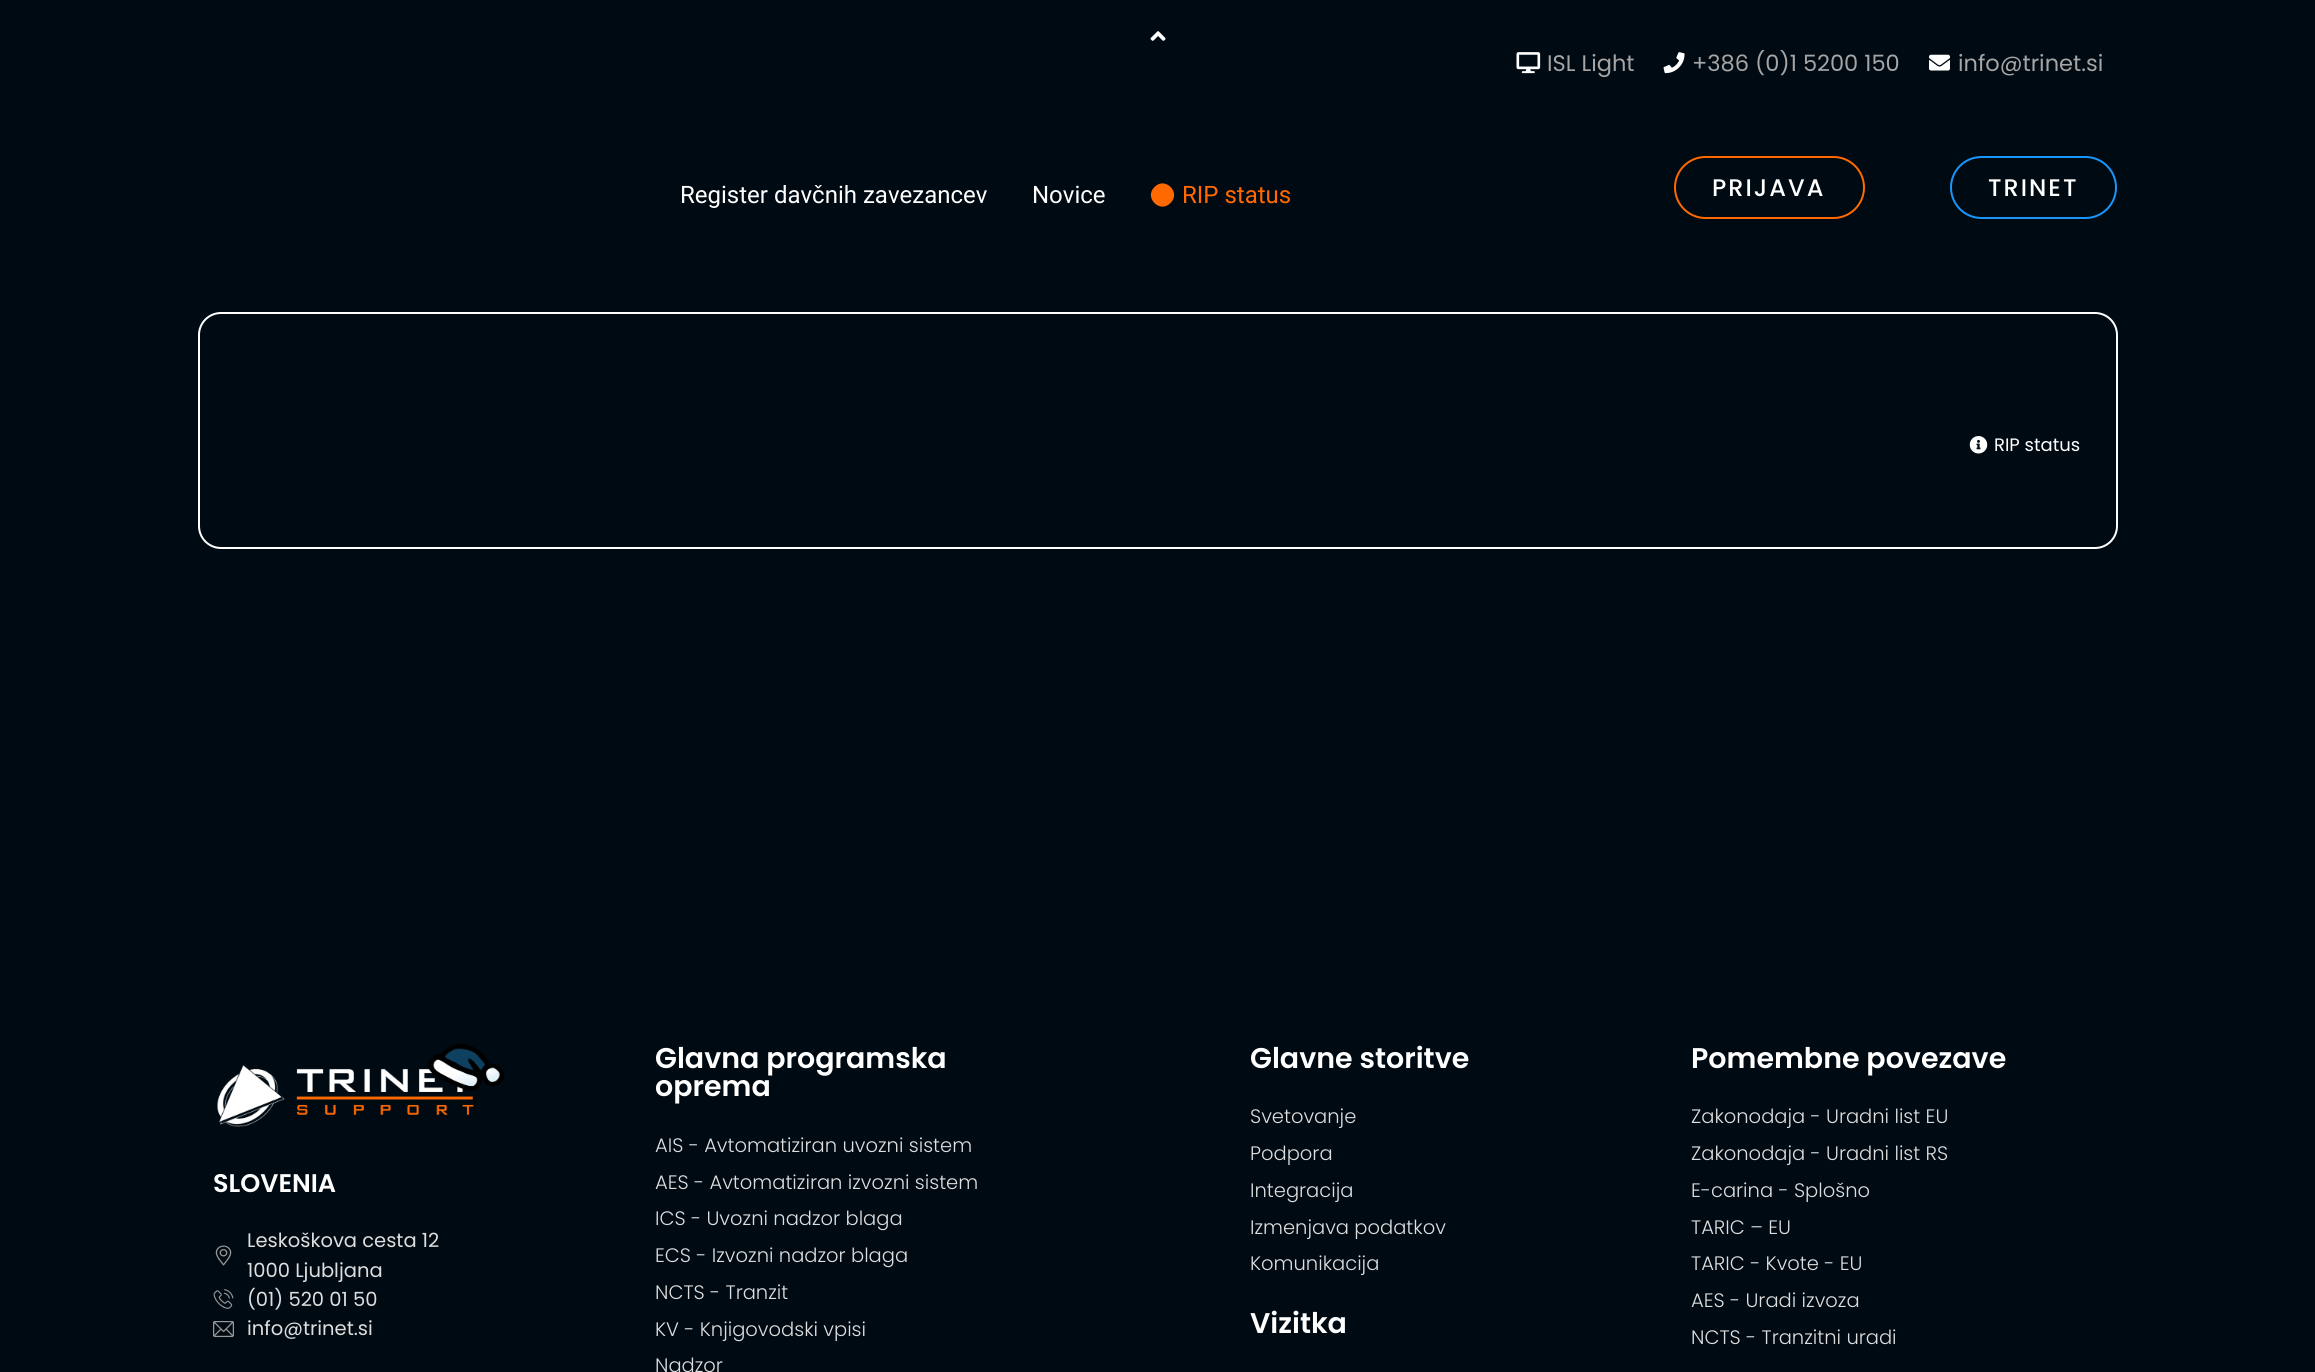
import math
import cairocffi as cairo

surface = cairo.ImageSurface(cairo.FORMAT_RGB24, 2315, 1372)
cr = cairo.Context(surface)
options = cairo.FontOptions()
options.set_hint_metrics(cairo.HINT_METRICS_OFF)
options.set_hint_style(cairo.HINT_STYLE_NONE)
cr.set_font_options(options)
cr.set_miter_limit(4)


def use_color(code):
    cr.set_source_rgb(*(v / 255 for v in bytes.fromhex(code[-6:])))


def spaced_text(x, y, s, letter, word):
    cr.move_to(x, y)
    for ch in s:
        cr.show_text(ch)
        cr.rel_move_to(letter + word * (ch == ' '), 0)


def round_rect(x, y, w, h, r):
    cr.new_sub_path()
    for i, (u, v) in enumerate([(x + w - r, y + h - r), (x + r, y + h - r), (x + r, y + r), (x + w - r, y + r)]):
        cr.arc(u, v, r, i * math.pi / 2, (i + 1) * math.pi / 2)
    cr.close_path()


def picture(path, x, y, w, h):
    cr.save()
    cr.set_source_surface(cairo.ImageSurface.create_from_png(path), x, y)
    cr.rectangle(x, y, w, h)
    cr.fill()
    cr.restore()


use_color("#000a12")
cr.paint()
picture("img1.png", 1516, 52, 25, 22)
cr.select_font_face("Poppins")
cr.set_font_size(22.5)
use_color("#a5a5a5")
cr.move_to(1547, 71)
cr.show_text("ISL Light")
picture("img2.png", 1663, 52, 22, 22)
cr.move_to(1692, 71)
cr.show_text("+386 (0)1 5200 150")
picture("img3.png", 1929, 54, 21, 17)
cr.move_to(1958, 71)
cr.show_text("info@trinet.si")
cr.select_font_face("Roboto")
cr.set_font_size(24)
use_color("#ffffff")
cr.move_to(680, 203)
cr.show_text("Register davčnih zavezancev")
cr.move_to(1032, 203)
cr.show_text("Novice")
use_color("#ff6900")
cr.new_path()
cr.move_to(1154.5, 187)
cr.curve_to(1165, 176, 1181.5, 192.5, 1170.5, 203)
cr.curve_to(1160, 214, 1143.5, 197.5, 1154.5, 187)
cr.close_path()
cr.fill()
cr.move_to(1182, 203)
cr.show_text("RIP status")
round_rect(1675, 157, 189, 61, 30.5)
cr.stroke()
cr.select_font_face("Poppins Medium")
use_color("#ffffff")
spaced_text(1712, 196, "PRIJAVA", 2, 0)
round_rect(1951, 157, 165, 61, 30.5)
use_color("#1996fc")
cr.stroke()
use_color("#ffffff")
spaced_text(1988, 196, "TRINET", 2, 0)
round_rect(199, 313, 1918, 235, 22)
cr.stroke()
picture("img4.png", 1969, 436, 19, 18)
cr.select_font_face("Poppins")
cr.set_font_size(18)
cr.move_to(1994, 451)
cr.show_text("RIP status")
picture("img5.png", 1150, 31, 16, 10)
picture("img6.png", 217, 1044, 287, 83)
cr.select_font_face("Poppins SemiBold")
cr.set_font_size(25.5)
cr.move_to(213, 1192)
cr.show_text("SLOVENIA")
picture("img7.png", 215, 1245, 17, 21)
cr.select_font_face("Poppins")
cr.set_font_size(19.5)
use_color("#dedede")
cr.move_to(247, 1247)
cr.show_text("Leskoškova cesta 12")
cr.move_to(247, 1277)
cr.show_text("1000 Ljubljana")
picture("img8.png", 213, 1289, 21, 20)
cr.move_to(247, 1306)
cr.show_text("(01) 520 01 50")
picture("img9.png", 213, 1321, 21, 17)
cr.move_to(247, 1335)
cr.show_text("info@trinet.si")
cr.select_font_face("Poppins SemiBold")
cr.set_font_size(28.5)
use_color("#ffffff")
cr.move_to(655, 1068)
cr.show_text("Glavna programska")
cr.move_to(655, 1096)
cr.show_text("oprema")
cr.select_font_face("Poppins Light")
cr.set_font_size(19.5)
use_color("#dedede")
cr.move_to(655, 1152)
cr.show_text("AIS - Avtomatiziran uvozni sistem")
cr.move_to(655, 1189)
cr.show_text("AES - Avtomatiziran izvozni sistem")
cr.move_to(655, 1225)
cr.show_text("ICS - Uvozni nadzor blaga")
cr.move_to(655, 1262)
cr.show_text("ECS - Izvozni nadzor blaga")
cr.move_to(655, 1299)
cr.show_text("NCTS - Tranzit")
cr.move_to(655, 1336)
cr.show_text("KV - Knjigovodski vpisi")
cr.move_to(655, 1372)
cr.show_text("Nadzor")
cr.select_font_face("Poppins SemiBold")
cr.set_font_size(28.5)
use_color("#ffffff")
cr.move_to(1250, 1068)
cr.show_text("Glavne storitve")
cr.select_font_face("Poppins Light")
cr.set_font_size(19.5)
use_color("#dedede")
cr.move_to(1250, 1123)
cr.show_text("Svetovanje")
cr.move_to(1250, 1160)
cr.show_text("Podpora")
cr.move_to(1250, 1197)
cr.show_text("Integracija")
cr.move_to(1250, 1234)
cr.show_text("Izmenjava podatkov")
cr.move_to(1250, 1270)
cr.show_text("Komunikacija")
cr.select_font_face("Poppins SemiBold")
cr.set_font_size(28.5)
use_color("#ffffff")
cr.move_to(1250, 1333)
cr.show_text("Vizitka")
cr.move_to(1691, 1068)
cr.show_text("Pomembne povezave")
cr.select_font_face("Poppins Light")
cr.set_font_size(19.5)
use_color("#dedede")
cr.move_to(1691, 1123)
cr.show_text("Zakonodaja - Uradni list EU")
cr.move_to(1691, 1160)
cr.show_text("Zakonodaja - Uradni list RS")
cr.move_to(1691, 1197)
cr.show_text("E-carina - Splošno")
cr.move_to(1691, 1234)
cr.show_text("TARIC – EU")
cr.move_to(1691, 1270)
cr.show_text("TARIC - Kvote - EU")
cr.move_to(1691, 1307)
cr.show_text("AES - Uradi izvoza")
cr.move_to(1691, 1344)
cr.show_text("NCTS - Tranzitni uradi")
surface.write_to_png("result.png")
